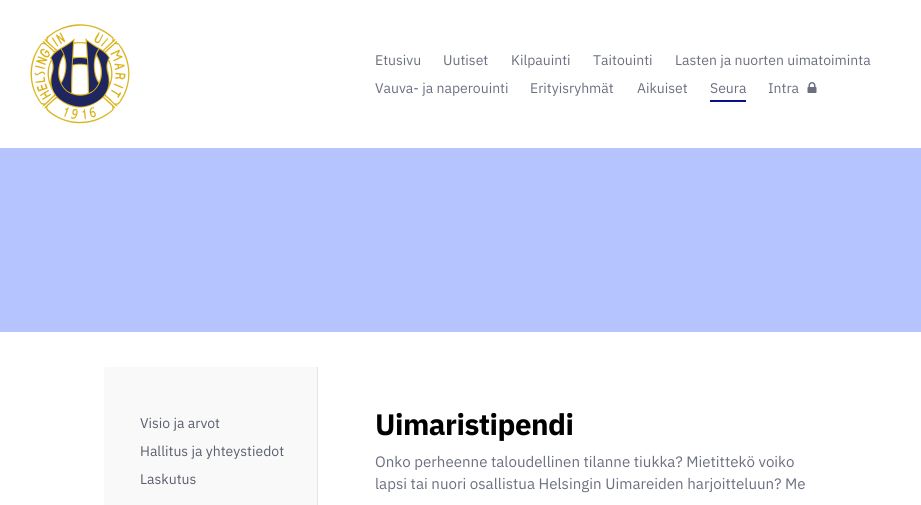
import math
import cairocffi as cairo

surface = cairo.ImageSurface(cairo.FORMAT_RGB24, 921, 505)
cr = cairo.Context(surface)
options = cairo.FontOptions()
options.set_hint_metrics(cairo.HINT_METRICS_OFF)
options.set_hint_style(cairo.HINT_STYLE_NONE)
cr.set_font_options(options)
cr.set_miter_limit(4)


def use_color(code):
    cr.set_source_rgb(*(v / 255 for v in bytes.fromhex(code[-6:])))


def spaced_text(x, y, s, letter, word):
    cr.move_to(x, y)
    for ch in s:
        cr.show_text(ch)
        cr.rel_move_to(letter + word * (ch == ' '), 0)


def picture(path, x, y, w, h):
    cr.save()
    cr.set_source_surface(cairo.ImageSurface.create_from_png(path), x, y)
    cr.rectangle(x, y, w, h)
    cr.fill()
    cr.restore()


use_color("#ffffff")
cr.paint()
use_color("#b5c4ff")
cr.rectangle(0, 148, 921, 184)
cr.fill()
picture("img1.png", 30, 24, 100, 100)
cr.select_font_face("IBM Plex Sans")
cr.set_font_size(14)
use_color("#6b6f80")
cr.move_to(375, 65)
cr.show_text("Etusivu")
cr.move_to(443, 65)
cr.show_text("Uutiset")
cr.move_to(511, 65)
cr.show_text("Kilpauinti")
cr.move_to(593, 65)
cr.show_text("Taitouinti")
cr.move_to(675, 65)
cr.show_text("Lasten ja nuorten uimatoiminta")
cr.move_to(375, 93)
cr.show_text("Vauva- ja naperouinti")
cr.move_to(530, 93)
cr.show_text("Erityisryhmät")
cr.move_to(637, 93)
cr.show_text("Aikuiset")
cr.move_to(710, 93)
cr.show_text("Seura")
use_color("#0a0e87")
cr.rectangle(710, 100, 36, 2)
cr.fill()
use_color("#6b6f80")
cr.move_to(768, 93)
cr.show_text("Intra")
picture("img2.png", 807, 82, 10, 11)
use_color("#f9f9f9")
cr.new_path()
cr.move_to(107, 367)
cr.line_to(318, 367)
cr.line_to(318, 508)
cr.line_to(104, 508)
cr.line_to(104, 370)
cr.curve_to(104, 368.5, 105.5, 367, 107, 367)
cr.close_path()
cr.fill()
use_color("#e6e6e6")
cr.rectangle(317, 367, 1, 138)
cr.fill()
use_color("#5a5e6e")
cr.move_to(140, 428)
cr.show_text("Visio ja arvot")
cr.move_to(140, 456)
cr.show_text("Hallitus ja yhteystiedot")
cr.move_to(140, 484)
cr.show_text("Laskutus")
cr.select_font_face("IBM Plex Sans", cairo.FONT_SLANT_NORMAL, cairo.FONT_WEIGHT_BOLD)
cr.set_font_size(29.5)
use_color("#000000")
spaced_text(375, 435, "Uimaristipendi", -0.5, 0)
cr.select_font_face("IBM Plex Sans")
cr.set_font_size(15.1)
use_color("#6b6f80")
cr.move_to(375, 467)
cr.show_text("Onko perheenne taloudellinen tilanne tiukka? Mietittekö voiko")
cr.move_to(375, 489)
cr.show_text("lapsi tai nuori osallistua Helsingin Uimareiden harjoitteluun? Me")
surface.write_to_png("result.png")
